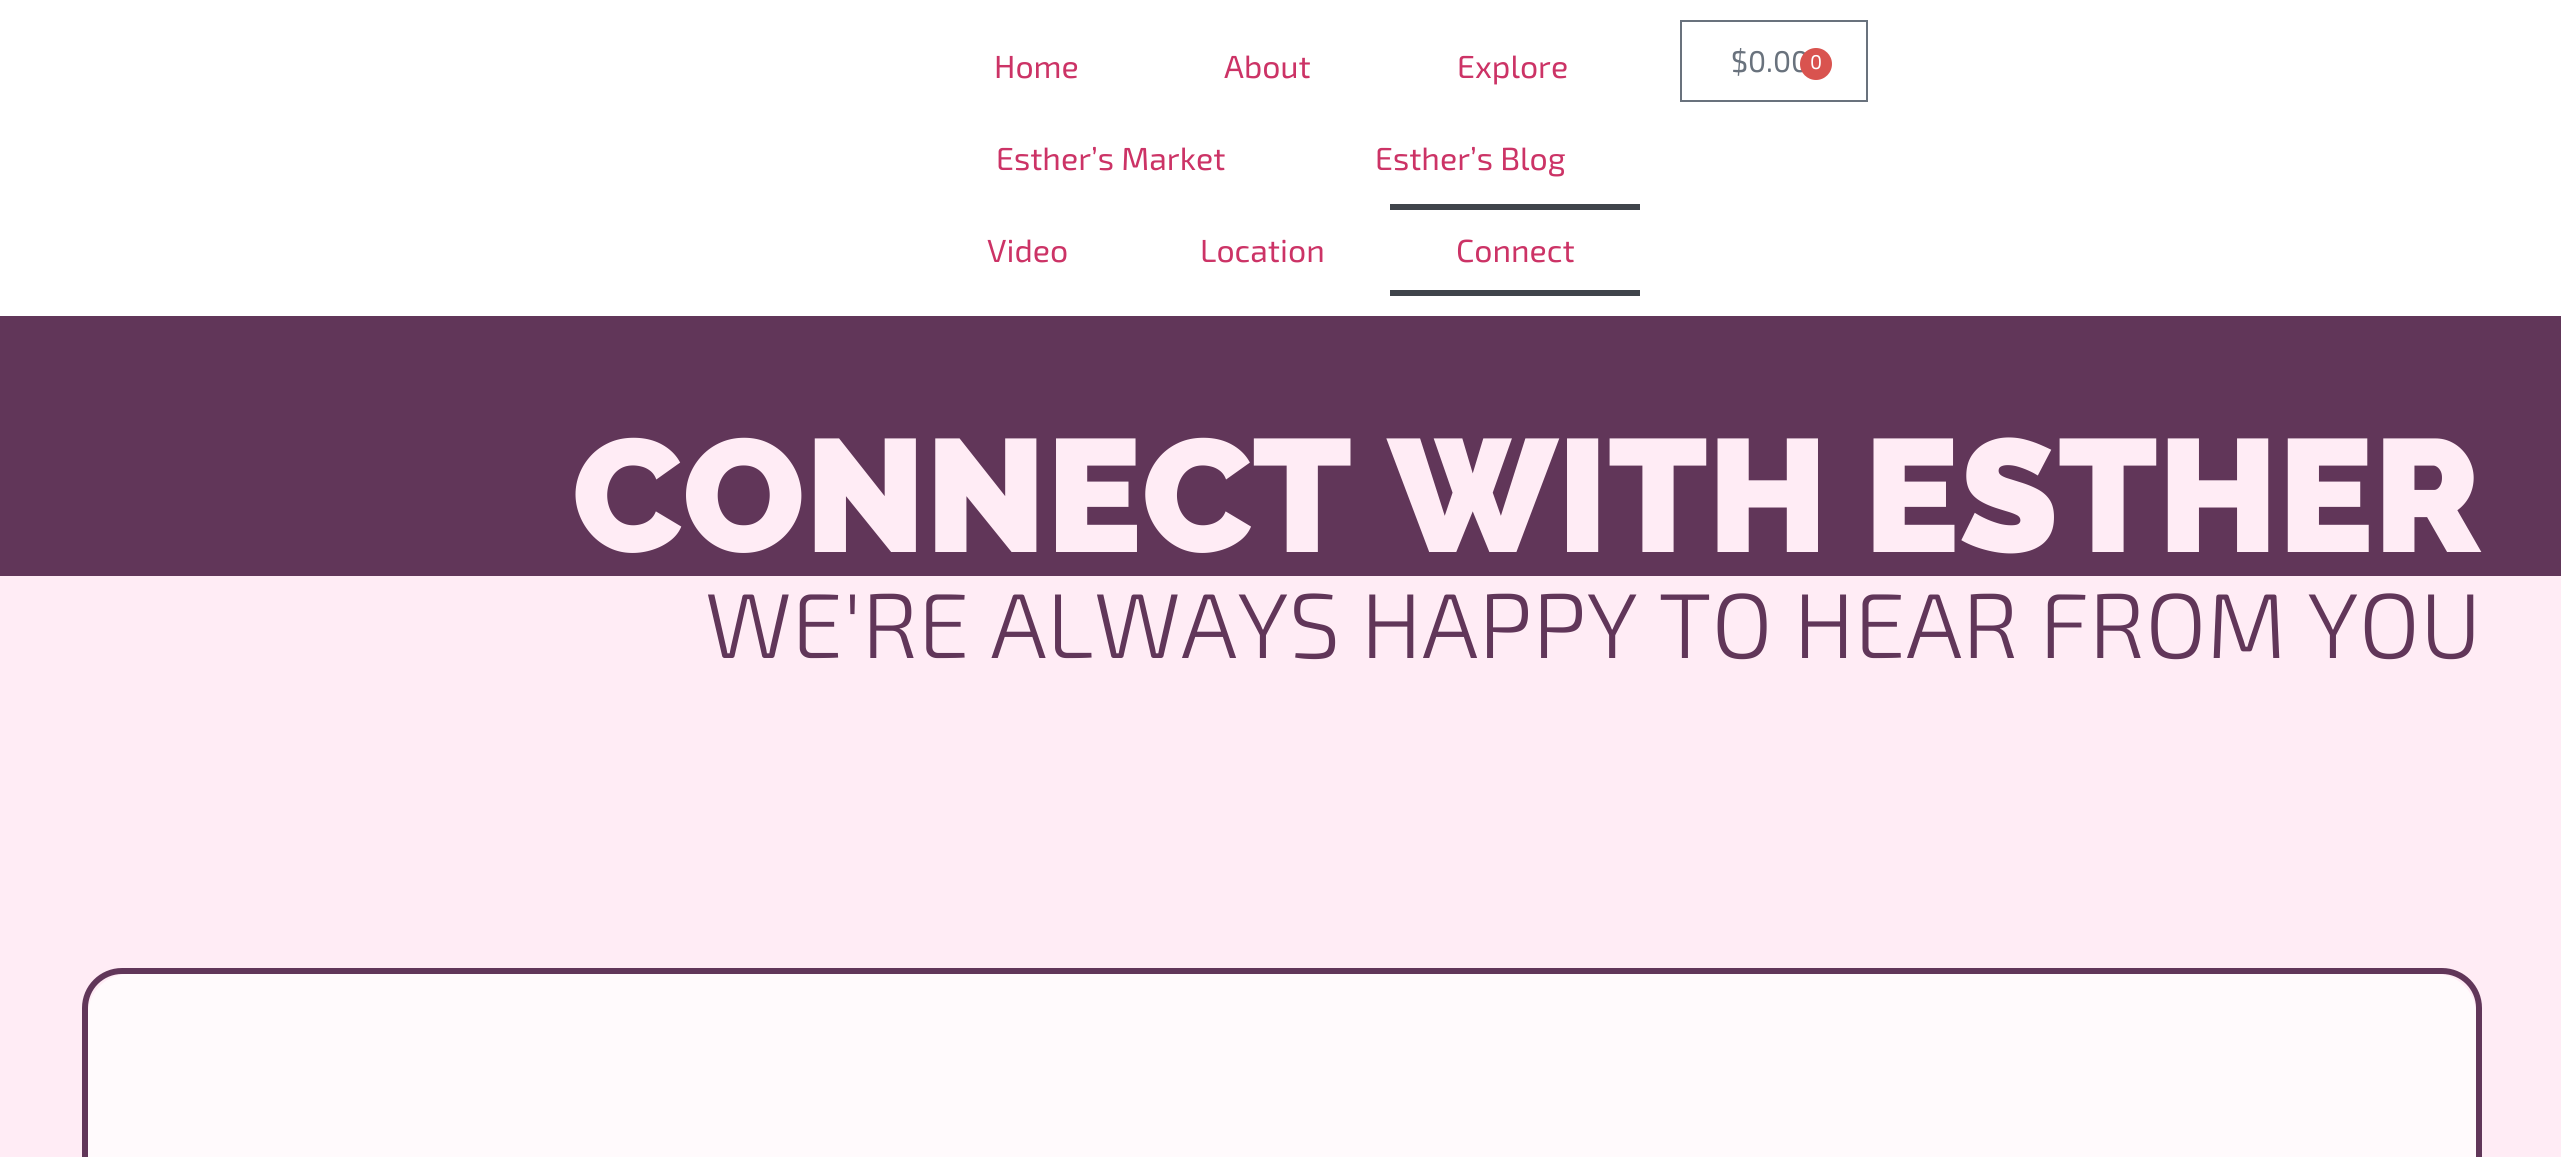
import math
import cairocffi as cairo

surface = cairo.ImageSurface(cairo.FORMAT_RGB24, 2561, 1157)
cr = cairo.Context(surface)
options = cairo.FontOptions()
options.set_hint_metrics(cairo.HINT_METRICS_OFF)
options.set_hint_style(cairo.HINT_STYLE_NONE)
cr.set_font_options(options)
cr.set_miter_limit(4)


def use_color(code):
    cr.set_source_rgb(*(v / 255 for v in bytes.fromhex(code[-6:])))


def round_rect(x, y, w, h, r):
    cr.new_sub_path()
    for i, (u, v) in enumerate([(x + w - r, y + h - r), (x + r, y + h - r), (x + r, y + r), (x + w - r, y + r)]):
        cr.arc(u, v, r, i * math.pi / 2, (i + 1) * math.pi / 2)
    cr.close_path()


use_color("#ffffff")
cr.paint()
cr.select_font_face("Exo 2")
cr.set_font_size(32)
use_color("#cc3366")
cr.move_to(994, 78)
cr.show_text("Home")
cr.move_to(1224, 78)
cr.show_text("About")
cr.move_to(1457, 78)
cr.show_text("Explore")
cr.move_to(996, 170)
cr.show_text("Esther’s Market")
cr.move_to(1375, 170)
cr.show_text("Esther’s Blog")
cr.move_to(987, 262)
cr.show_text("Video")
cr.move_to(1200, 262)
cr.show_text("Location")
use_color("#3f444b")
cr.rectangle(1390, 204, 250, 6)
cr.fill()
use_color("#cc3366")
cr.move_to(1456, 262)
cr.show_text("Connect")
use_color("#3f444b")
cr.rectangle(1390, 290, 250, 6)
cr.fill()
cr.rectangle(1681, 21, 186, 80)
use_color("#69727d")
cr.stroke()
cr.set_font_size(30)
cr.move_to(1731, 72)
cr.show_text("$0.00")
use_color("#d9534f")
cr.new_path()
cr.arc(1816, 64, 16, 0, 2 * math.pi)
cr.fill()
cr.set_font_size(20)
use_color("#ffffff")
cr.move_to(1810, 69)
cr.show_text("0")
use_color("#613659")
cr.rectangle(0, 316, 2561, 260)
cr.fill()
cr.select_font_face("Raleway Black")
cr.set_font_size(160)
use_color("#ffecf5")
cr.move_to(572, 552)
cr.show_text("CONNECT WITH ESTHER")
cr.rectangle(0, 576, 2561, 581)
cr.fill()
cr.select_font_face("Exo 2 Light")
cr.set_font_size(92)
use_color("#613659")
cr.move_to(705, 658)
cr.show_text("WE'RE ALWAYS HAPPY TO HEAR FROM YOU")
round_rect(85, 971, 2394, 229, 37)
cr.set_line_width(6)
cr.stroke()
use_color("#fffafc")
cr.new_path()
cr.move_to(128, 974)
cr.line_to(1282, 974)
cr.line_to(1282, 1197)
cr.line_to(128, 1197)
cr.curve_to(106, 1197, 88, 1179, 88, 1157)
cr.line_to(88, 1014)
cr.curve_to(88, 992, 106, 974, 128, 974)
cr.close_path()
cr.fill()
cr.new_path()
cr.move_to(1282, 974)
cr.line_to(2436, 974)
cr.curve_to(2458, 974, 2476, 992, 2476, 1014)
cr.line_to(2476, 1157)
cr.curve_to(2476, 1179, 2458, 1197, 2436, 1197)
cr.line_to(1282, 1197)
cr.close_path()
cr.fill()
surface.write_to_png("result.png")
